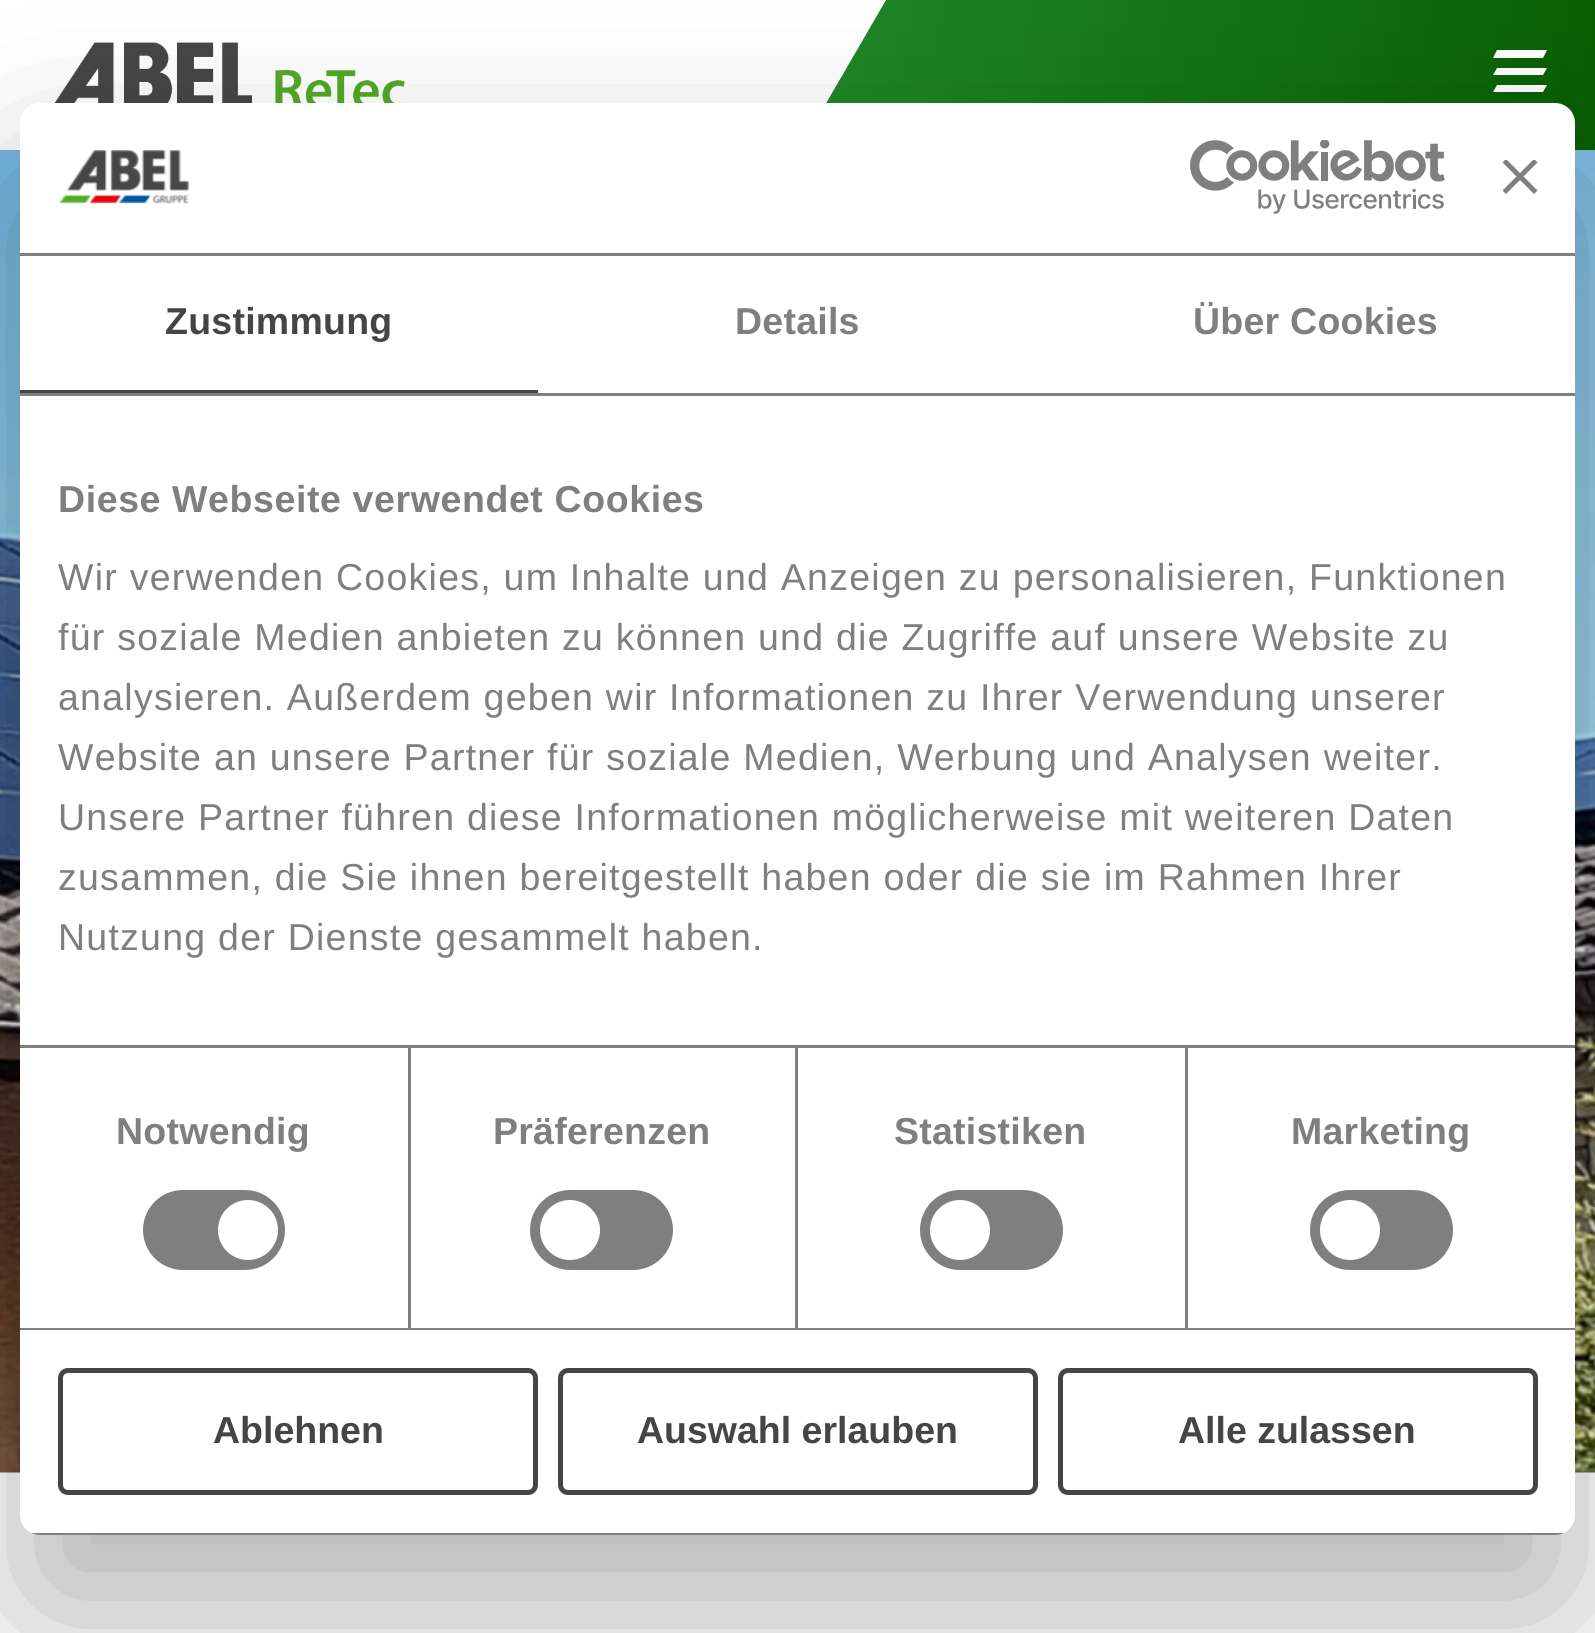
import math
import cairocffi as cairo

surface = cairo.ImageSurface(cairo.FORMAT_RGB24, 1595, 1633)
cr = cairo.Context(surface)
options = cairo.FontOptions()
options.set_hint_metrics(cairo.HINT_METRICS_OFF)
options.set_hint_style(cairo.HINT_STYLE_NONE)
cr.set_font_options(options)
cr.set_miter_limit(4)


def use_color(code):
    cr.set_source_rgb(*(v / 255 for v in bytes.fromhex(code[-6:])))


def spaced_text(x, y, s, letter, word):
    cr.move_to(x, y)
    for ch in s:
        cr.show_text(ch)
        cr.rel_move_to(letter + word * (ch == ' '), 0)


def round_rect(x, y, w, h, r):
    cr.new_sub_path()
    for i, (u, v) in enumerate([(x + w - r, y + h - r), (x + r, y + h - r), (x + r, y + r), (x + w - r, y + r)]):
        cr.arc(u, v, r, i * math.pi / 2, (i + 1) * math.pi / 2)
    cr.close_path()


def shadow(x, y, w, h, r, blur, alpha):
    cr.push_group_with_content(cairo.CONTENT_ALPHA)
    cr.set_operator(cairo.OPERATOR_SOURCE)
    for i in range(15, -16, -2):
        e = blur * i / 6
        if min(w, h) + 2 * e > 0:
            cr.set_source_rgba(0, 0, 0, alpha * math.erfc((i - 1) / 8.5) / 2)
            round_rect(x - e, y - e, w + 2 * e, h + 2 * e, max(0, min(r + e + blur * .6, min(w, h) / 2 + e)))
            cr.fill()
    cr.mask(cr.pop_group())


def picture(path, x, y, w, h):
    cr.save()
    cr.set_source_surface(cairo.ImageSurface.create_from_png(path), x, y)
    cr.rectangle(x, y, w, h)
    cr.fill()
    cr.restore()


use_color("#ffffff")
cr.paint()
picture("img1.png", 54, 42, 351, 61)
gradient = cairo.LinearGradient(843, 75, 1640, 75)
gradient.add_color_stop_rgba(0, 0.118, 0.525, 0.153, 1)
gradient.add_color_stop_rgba(1, 0.027, 0.365, 0, 1)
cr.set_source(gradient)
cr.new_path()
cr.move_to(886, 0)
cr.line_to(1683, 0)
cr.line_to(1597, 150)
cr.line_to(799, 150)
cr.close_path()
cr.fill()
use_color("#ffffff")
cr.new_path()
cr.move_to(1497, 50)
cr.line_to(1547, 50)
cr.line_to(1543, 58)
cr.line_to(1493, 58)
cr.close_path()
cr.move_to(1497, 68)
cr.line_to(1547, 68)
cr.line_to(1543, 75)
cr.line_to(1493, 75)
cr.close_path()
cr.move_to(1497, 85)
cr.line_to(1547, 85)
cr.line_to(1543, 92)
cr.line_to(1493, 92)
cr.close_path()
cr.fill()
picture("img2.png", 0, 150, 1595, 1323)
use_color("#000000")
shadow(20, 183, 1555, 1432, 20, 85, 0.3)
use_color("#ffffff")
round_rect(20, 103, 1555, 1432, 20)
cr.fill()
use_color("#7f7f7f")
cr.rectangle(20, 253, 1555, 3)
cr.fill()
picture("img3.png", 59, 150, 131, 54)
picture("img4.png", 1190, 140, 255, 74)
cr.save()
cr.rectangle(1503, 160, 35, 35)
cr.clip()
cr.new_path()
cr.move_to(1537.5, 162.5)
cr.line_to(1534, 159)
cr.line_to(1520, 173)
cr.line_to(1506, 159)
cr.line_to(1502.5, 162.5)
cr.line_to(1516.5, 176.5)
cr.line_to(1502.5, 190.5)
cr.line_to(1506, 194)
cr.line_to(1520, 180)
cr.line_to(1534, 194)
cr.line_to(1537.5, 190.5)
cr.line_to(1523.5, 176.5)
cr.close_path()
cr.fill()
cr.restore()
cr.rectangle(20, 393, 1555, 3)
cr.fill()
use_color("#444544")
cr.rectangle(20, 390, 518, 3)
cr.fill()
cr.select_font_face("Liberation Sans", cairo.FONT_SLANT_NORMAL, cairo.FONT_WEIGHT_BOLD)
cr.set_font_size(37.5)
spaced_text(165, 334, "Zustimmung", 0.25, 0)
use_color("#7f7f7f")
spaced_text(735, 334, "Details", 0.25, 0)
spaced_text(1193, 334, "Über Cookies", 0.25, 0)
cr.rectangle(20, 1045, 1555, 3)
cr.fill()
spaced_text(58, 512, "Diese Webseite verwendet Cookies", 0.6, 0)
cr.select_font_face("Liberation Sans")
spaced_text(58, 590, "Wir verwenden Cookies, um Inhalte und Anzeigen zu personalisieren, Funktionen", 1.25, 0)
spaced_text(58, 650, "für soziale Medien anbieten zu können und die Zugriffe auf unsere Website zu", 1.25, 0)
spaced_text(58, 710, "analysieren. Außerdem geben wir Informationen zu Ihrer Verwendung unserer", 1.25, 0)
spaced_text(58, 770, "Website an unsere Partner für soziale Medien, Werbung und Analysen weiter.", 1.25, 0)
spaced_text(58, 830, "Unsere Partner führen diese Informationen möglicherweise mit weiteren Daten", 1.25, 0)
spaced_text(58, 890, "zusammen, die Sie ihnen bereitgestellt haben oder die sie im Rahmen Ihrer", 1.25, 0)
spaced_text(58, 950, "Nutzung der Dienste gesammelt haben.", 1.25, 0)
cr.rectangle(20, 1328, 1555, 2)
cr.fill()
cr.rectangle(408, 1048, 3, 280)
cr.fill()
cr.select_font_face("Liberation Sans", cairo.FONT_SLANT_NORMAL, cairo.FONT_WEIGHT_BOLD)
spaced_text(116, 1144, "Notwendig", 0.25, 0)
round_rect(143, 1190, 142, 80, 40)
cr.fill()
use_color("#ffffff")
cr.arc(248, 1230, 30, 0, 2 * math.pi)
cr.fill()
use_color("#7f7f7f")
cr.rectangle(795, 1048, 3, 280)
cr.fill()
spaced_text(493, 1144, "Präferenzen", 0.25, 0)
round_rect(530, 1190, 143, 80, 40)
cr.fill()
use_color("#ffffff")
cr.arc(570, 1230, 30, 0, 2 * math.pi)
cr.fill()
use_color("#7f7f7f")
cr.rectangle(1185, 1048, 3, 280)
cr.fill()
spaced_text(894, 1144, "Statistiken", 0.25, 0)
round_rect(920, 1190, 143, 80, 40)
cr.fill()
use_color("#ffffff")
cr.arc(960, 1230, 30, 0, 2 * math.pi)
cr.fill()
use_color("#7f7f7f")
spaced_text(1291, 1144, "Marketing", 0.25, 0)
round_rect(1310, 1190, 143, 80, 40)
cr.fill()
use_color("#ffffff")
cr.arc(1350, 1230, 30, 0, 2 * math.pi)
cr.fill()
cr.save()
round_rect(20, 103, 1555, 1432, 20)
cr.clip()
use_color("#7f7f7f")
cr.rectangle(31, 1533, 1533, 2)
cr.fill()
cr.restore()
round_rect(60.5, 1370.5, 475, 122, 7.5)
use_color("#444544")
cr.set_line_width(5)
cr.stroke()
cr.move_to(213, 1443)
cr.show_text("Ablehnen")
round_rect(560.5, 1370.5, 475, 122, 7.5)
cr.stroke()
cr.move_to(637, 1443)
cr.show_text("Auswahl erlauben")
round_rect(1060.5, 1370.5, 475, 122, 7.5)
cr.stroke()
cr.move_to(1178, 1443)
cr.show_text("Alle zulassen")
surface.write_to_png("result.png")
